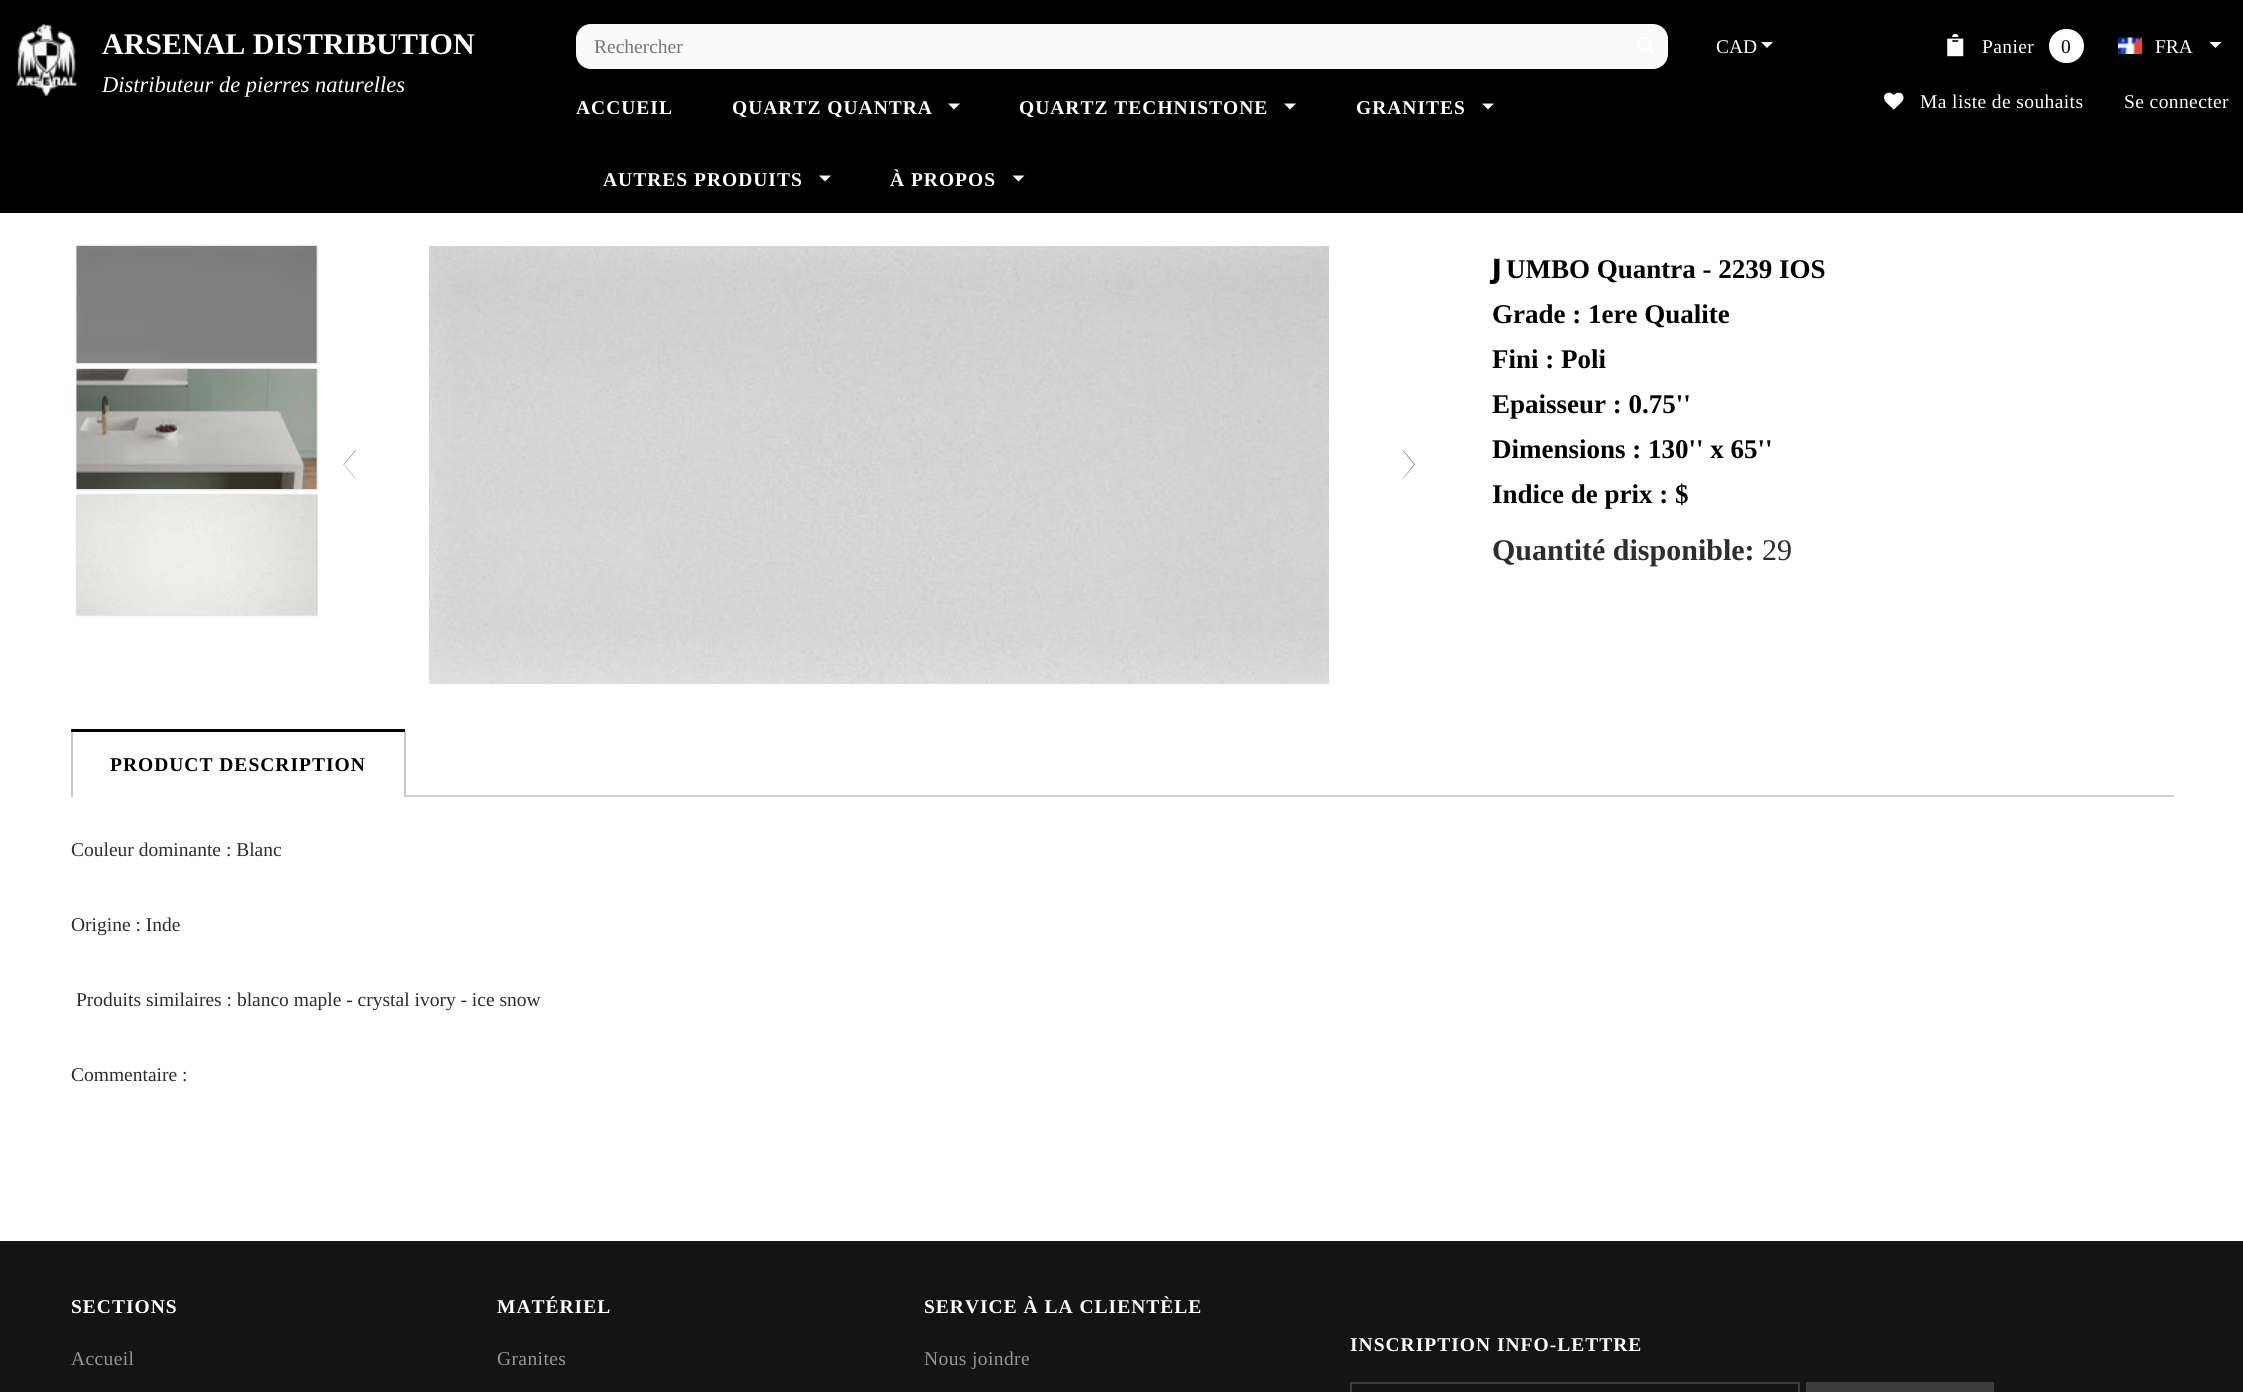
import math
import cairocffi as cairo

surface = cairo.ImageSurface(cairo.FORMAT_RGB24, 2243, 1392)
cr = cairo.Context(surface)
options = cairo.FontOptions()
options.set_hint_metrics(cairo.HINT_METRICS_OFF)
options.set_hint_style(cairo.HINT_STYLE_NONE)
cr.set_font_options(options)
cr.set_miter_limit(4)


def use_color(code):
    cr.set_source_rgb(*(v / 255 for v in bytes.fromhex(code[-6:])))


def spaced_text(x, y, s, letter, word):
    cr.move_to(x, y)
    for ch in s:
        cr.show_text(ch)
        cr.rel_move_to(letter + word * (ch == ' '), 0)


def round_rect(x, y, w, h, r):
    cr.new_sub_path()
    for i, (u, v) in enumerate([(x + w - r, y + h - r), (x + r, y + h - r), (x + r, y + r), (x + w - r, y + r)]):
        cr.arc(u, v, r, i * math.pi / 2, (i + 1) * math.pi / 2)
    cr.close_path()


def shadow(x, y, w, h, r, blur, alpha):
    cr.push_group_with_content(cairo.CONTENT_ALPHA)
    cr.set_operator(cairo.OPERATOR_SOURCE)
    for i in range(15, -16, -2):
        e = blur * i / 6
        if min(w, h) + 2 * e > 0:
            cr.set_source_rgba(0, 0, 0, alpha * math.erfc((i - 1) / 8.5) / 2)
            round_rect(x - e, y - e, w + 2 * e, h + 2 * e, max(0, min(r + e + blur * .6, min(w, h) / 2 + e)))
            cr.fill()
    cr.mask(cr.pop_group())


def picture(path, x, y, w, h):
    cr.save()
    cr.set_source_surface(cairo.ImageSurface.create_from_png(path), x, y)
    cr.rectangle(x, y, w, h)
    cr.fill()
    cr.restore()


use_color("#ffffff")
cr.paint()
use_color("#000000")
cr.rectangle(0, 0, 2243, 213)
cr.fill()
picture("img1.png", 16, 24, 61, 72)
cr.select_font_face("Liberation Serif", cairo.FONT_SLANT_NORMAL, cairo.FONT_WEIGHT_BOLD)
cr.set_font_size(30)
use_color("#ffffff")
cr.move_to(102, 54)
cr.show_text("ARSENAL DISTRIBUTION")
cr.select_font_face("Liberation Serif", cairo.FONT_SLANT_ITALIC)
cr.set_font_size(22.5)
cr.move_to(102, 92)
cr.show_text("Distributeur de pierres naturelles")
use_color("#fafafa")
round_rect(576, 24, 1092, 45, 15)
cr.fill()
cr.select_font_face("Liberation Serif")
cr.set_font_size(19.5)
use_color("#757575")
cr.move_to(594, 53)
cr.show_text("Rechercher")
picture("img2.png", 1637, 37, 17, 17)
cr.select_font_face("Liberation Serif", cairo.FONT_SLANT_NORMAL, cairo.FONT_WEIGHT_BOLD)
use_color("#ffffff")
spaced_text(576, 114, "ACCUEIL", 1, 0)
spaced_text(732, 114, "QUARTZ QUANTRA", 1, 0)
cr.new_path()
cr.move_to(948, 103.5)
cr.line_to(960, 103.5)
cr.line_to(954, 109.5)
cr.close_path()
cr.fill()
spaced_text(1019, 114, "QUARTZ TECHNISTONE", 1, 0)
cr.new_path()
cr.move_to(1284, 103.5)
cr.line_to(1296, 103.5)
cr.line_to(1290, 109.5)
cr.close_path()
cr.fill()
spaced_text(1356, 114, "GRANITES", 1, 0)
cr.new_path()
cr.move_to(1482, 103.5)
cr.line_to(1494, 103.5)
cr.line_to(1488, 109.5)
cr.close_path()
cr.fill()
spaced_text(603, 186, "AUTRES PRODUITS", 1, 0)
cr.new_path()
cr.move_to(819, 175.5)
cr.line_to(831, 175.5)
cr.line_to(825, 181.5)
cr.close_path()
cr.fill()
spaced_text(890, 186, "À PROPOS", 1, 0)
cr.new_path()
cr.move_to(1012.5, 175.5)
cr.line_to(1024.5, 175.5)
cr.line_to(1018.5, 181.5)
cr.close_path()
cr.fill()
cr.select_font_face("Liberation Serif")
cr.move_to(1716, 53)
cr.show_text("CAD")
cr.new_path()
cr.move_to(1761, 42)
cr.line_to(1773, 42)
cr.line_to(1767, 48)
cr.close_path()
cr.fill()
picture("img3.png", 1947, 33, 17, 24)
spaced_text(1982, 53, "Panier", 0.4, 0)
round_rect(2049, 29, 35, 34, 17)
cr.fill()
use_color("#000000")
spaced_text(2061, 53, "0", 0.4, 0)
picture("img4.png", 2118, 37, 24, 17)
use_color("#ffffff")
cr.move_to(2155, 53)
cr.show_text("FRA")
cr.new_path()
cr.move_to(2209.5, 42)
cr.line_to(2221.5, 42)
cr.line_to(2215.5, 48)
cr.close_path()
cr.fill()
picture("img5.png", 1884, 92, 20, 18)
spaced_text(1920, 108, "Ma liste de souhaits", 0.4, 0)
spaced_text(2124, 108, "Se connecter", 0.4, 0)
use_color("#000000")
shadow(77, 246, 240, 117, 0, 1, 0.3)
picture("img6.png", 76, 246, 241, 117)
shadow(77, 369, 240, 120, 0, 1, 0.3)
picture("img7.png", 76, 369, 241, 120)
shadow(77, 495, 240, 120, 0, 1, 0.3)
picture("img8.png", 76, 495, 241, 120)
use_color("#808080")
cr.new_path()
cr.move_to(343.5, 464.5)
cr.line_to(355.5, 450)
cr.line_to(356, 450.5)
cr.line_to(344, 464.5)
cr.line_to(356, 479)
cr.line_to(355.5, 479)
cr.close_path()
cr.fill()
picture("img9.png", 429, 246, 900, 438)
cr.new_path()
cr.move_to(1415, 464.5)
cr.line_to(1403, 479)
cr.line_to(1402.5, 479)
cr.line_to(1414, 464.5)
cr.line_to(1402.5, 450.5)
cr.line_to(1403, 450)
cr.close_path()
cr.fill()
cr.select_font_face("Noto Sans Black")
cr.set_font_size(27)
use_color("#000000")
cr.move_to(1492, 278)
cr.show_text("J")
cr.select_font_face("Liberation Serif", cairo.FONT_SLANT_NORMAL, cairo.FONT_WEIGHT_BOLD)
cr.move_to(1506, 278)
cr.show_text("UMBO Quantra - 2239 IOS")
cr.move_to(1492, 323)
cr.show_text("Grade : 1ere Qualite")
cr.move_to(1492, 368)
cr.show_text("Fini : Poli")
cr.move_to(1492, 413)
cr.show_text("Epaisseur : 0.75''")
cr.move_to(1492, 458)
cr.show_text("Dimensions : 130'' x 65''")
cr.move_to(1492, 503)
cr.show_text("Indice de prix : $")
cr.set_font_size(30)
use_color("#2d2d2d")
cr.move_to(1492, 560)
cr.show_text("Quantité disponible:")
cr.select_font_face("Liberation Serif")
cr.move_to(1762, 560)
cr.show_text("29")
use_color("#d0d0d0")
cr.rectangle(406, 795, 1768, 2)
cr.fill()
use_color("#000000")
cr.rectangle(71, 729, 334, 3)
cr.fill()
use_color("#c8c8c8")
cr.rectangle(404, 732, 2, 65)
cr.fill()
cr.rectangle(71, 732, 2, 65)
cr.fill()
cr.select_font_face("Liberation Serif", cairo.FONT_SLANT_NORMAL, cairo.FONT_WEIGHT_BOLD)
cr.set_font_size(19.5)
use_color("#000000")
spaced_text(110, 771, "PRODUCT DESCRIPTION", 1, 0)
cr.select_font_face("Liberation Serif")
use_color("#2d2d2d")
cr.move_to(71, 856)
cr.show_text("Couleur dominante : Blanc")
cr.move_to(71, 931)
cr.show_text("Origine : Inde")
cr.move_to(76, 1006)
cr.show_text("Produits similaires : blanco maple - crystal ivory - ice snow")
cr.move_to(71, 1081)
cr.show_text("Commentaire :")
use_color("#141414")
cr.rectangle(0, 1241, 2243, 151)
cr.fill()
cr.select_font_face("Liberation Serif", cairo.FONT_SLANT_NORMAL, cairo.FONT_WEIGHT_BOLD)
use_color("#ffffff")
spaced_text(71, 1313, "SECTIONS", 1, 0)
cr.select_font_face("Liberation Serif")
use_color("#969696")
spaced_text(71, 1365, "Accueil", 0.4, 0)
cr.select_font_face("Liberation Serif", cairo.FONT_SLANT_NORMAL, cairo.FONT_WEIGHT_BOLD)
use_color("#ffffff")
spaced_text(497, 1313, "MATÉRIEL", 1, 0)
cr.select_font_face("Liberation Serif")
use_color("#969696")
spaced_text(497, 1365, "Granites", 0.4, 0)
cr.select_font_face("Liberation Serif", cairo.FONT_SLANT_NORMAL, cairo.FONT_WEIGHT_BOLD)
use_color("#ffffff")
spaced_text(924, 1313, "SERVICE À LA CLIENTÈLE", 1, 0)
cr.select_font_face("Liberation Serif")
use_color("#969696")
spaced_text(924, 1365, "Nous joindre", 0.4, 0)
cr.select_font_face("Liberation Serif", cairo.FONT_SLANT_NORMAL, cairo.FONT_WEIGHT_BOLD)
use_color("#ffffff")
spaced_text(1350, 1351, "INSCRIPTION INFO-LETTRE", 1, 0)
cr.rectangle(1351, 1383, 448, 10)
use_color("#3b3b3b")
cr.stroke()
cr.rectangle(1806, 1382, 188, 10)
cr.fill()
surface.write_to_png("result.png")
